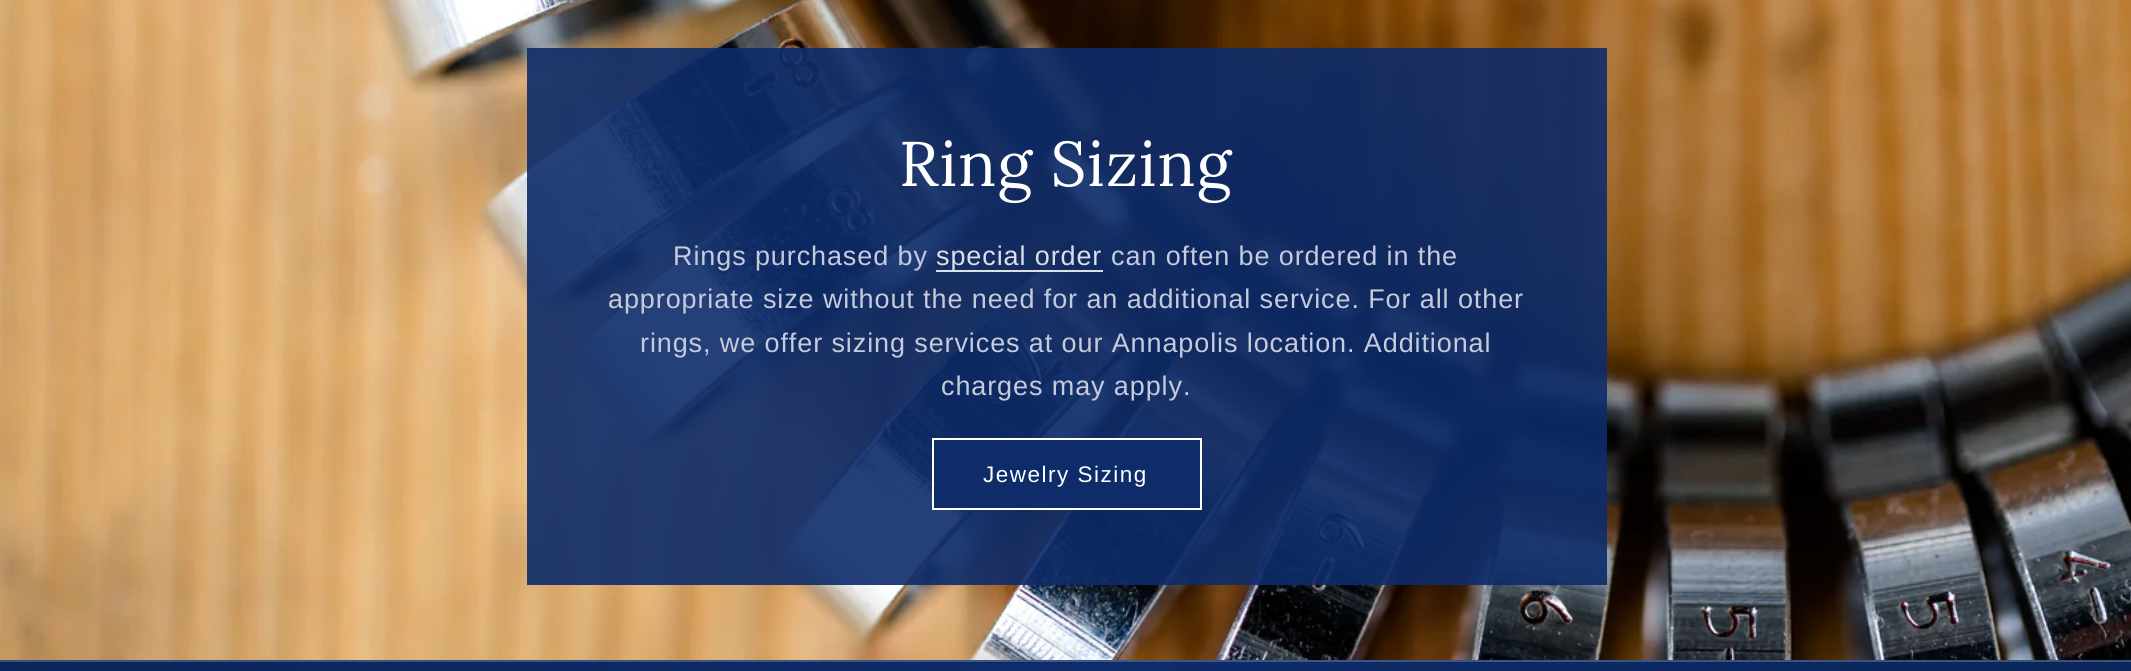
import math
import cairocffi as cairo

surface = cairo.ImageSurface(cairo.FORMAT_RGB24, 2131, 671)
cr = cairo.Context(surface)
options = cairo.FontOptions()
options.set_hint_metrics(cairo.HINT_METRICS_OFF)
options.set_hint_style(cairo.HINT_STYLE_NONE)
cr.set_font_options(options)
cr.set_miter_limit(4)


def use_color(code):
    cr.set_source_rgb(*(v / 255 for v in bytes.fromhex(code[-6:])))


def spaced_text(x, y, s, letter, word):
    cr.move_to(x, y)
    for ch in s:
        cr.show_text(ch)
        cr.rel_move_to(letter + word * (ch == ' '), 0)


def picture(path, x, y, w, h):
    cr.save()
    cr.set_source_surface(cairo.ImageSurface.create_from_png(path), x, y)
    cr.rectangle(x, y, w, h)
    cr.fill()
    cr.restore()


use_color("#ffffff")
cr.paint()
gradient = cairo.LinearGradient(0, 336, 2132, 336)
gradient.add_color_stop_rgba(0, 0.039, 0.149, 0.353, 1)
gradient.add_color_stop_rgba(0.5, 0.055, 0.173, 0.416, 1)
gradient.add_color_stop_rgba(1, 0.039, 0.149, 0.353, 1)
cr.set_source(gradient)
cr.rectangle(0, 662, 2131, 9)
cr.fill()
gradient = cairo.LinearGradient(0, 336, 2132, 336)
gradient.add_color_stop_rgba(0, 0.231, 0.318, 0.482, 1)
gradient.add_color_stop_rgba(0.5, 0.243, 0.337, 0.533, 1)
gradient.add_color_stop_rgba(1, 0.231, 0.318, 0.482, 1)
cr.set_source(gradient)
cr.rectangle(0, 660, 2131, 2)
cr.fill()
picture("img1.png", 0, 0, 2131, 660)
cr.set_source_rgba(0.055, 0.173, 0.416, 0.9)
cr.rectangle(527, 48, 1080, 537)
cr.fill()
cr.select_font_face("Lora")
cr.set_font_size(63)
use_color("#ffffff")
spaced_text(899, 186, "Ring Sizing", 0.9, 0)
cr.select_font_face("Liberation Sans")
cr.set_font_size(27)
use_color("#c5cbda")
spaced_text(673, 265, "Rings purchased by", 0.9, 0)
cr.set_source_rgba(1, 1, 1, 0.85)
cr.rectangle(936, 270, 167, 2)
cr.fill()
use_color("#dcdfe7")
spaced_text(936, 265, "special order", 0.9, 0)
use_color("#c5cbda")
spaced_text(1111, 265, "can often be ordered in the", 0.9, 0)
spaced_text(608, 308, "appropriate size without the need for an additional service. For all other", 0.9, 0)
spaced_text(640, 352, "rings, we offer sizing services at our Annapolis location. Additional", 0.9, 0)
spaced_text(941, 395, "charges may apply.", 0.9, 0)
use_color("#0e2c6a")
cr.rectangle(934, 440, 266, 68)
cr.fill()
cr.rectangle(933, 439, 268, 70)
use_color("#ffffff")
cr.stroke()
cr.set_font_size(22.5)
spaced_text(983, 482, "Jewelry Sizing", 1.5, 0)
surface.write_to_png("result.png")
